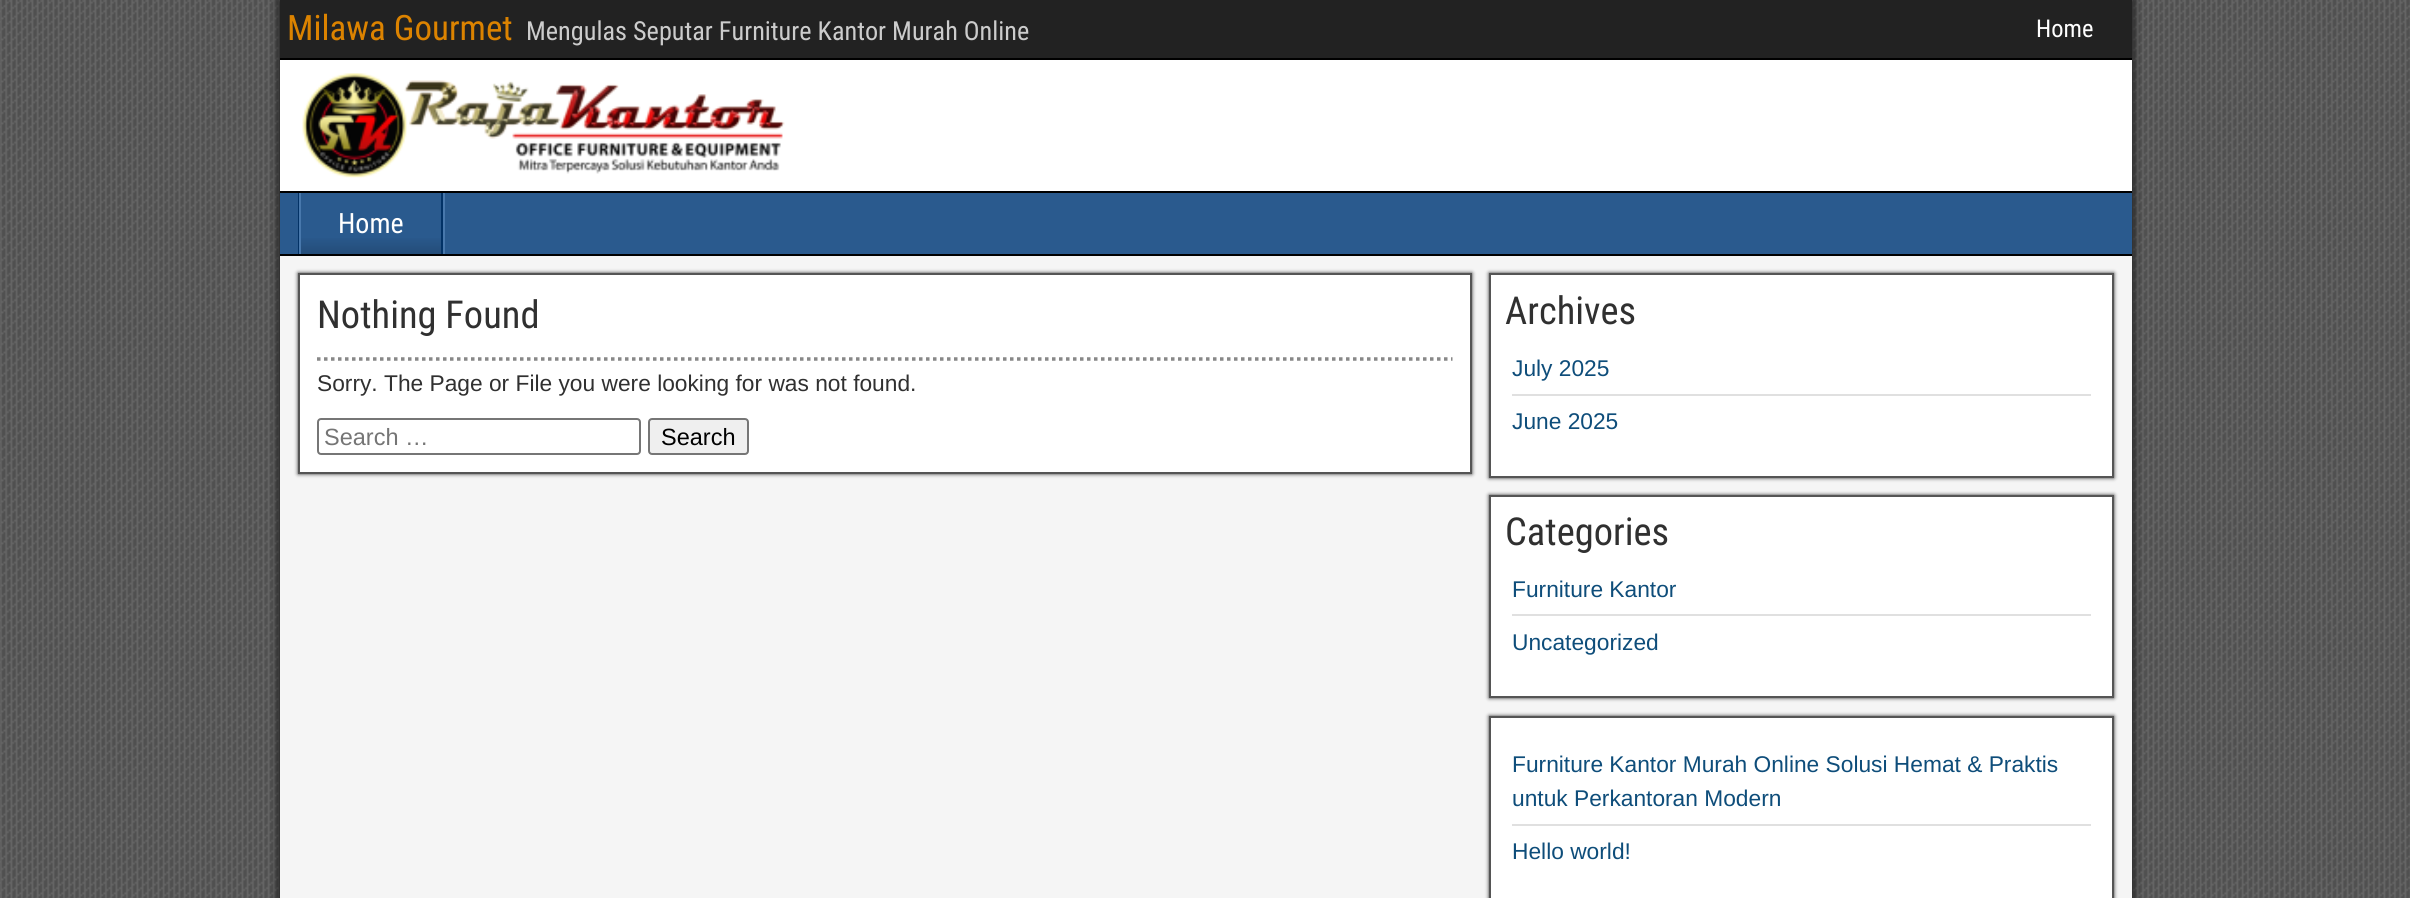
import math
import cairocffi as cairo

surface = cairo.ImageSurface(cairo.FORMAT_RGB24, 2410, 898)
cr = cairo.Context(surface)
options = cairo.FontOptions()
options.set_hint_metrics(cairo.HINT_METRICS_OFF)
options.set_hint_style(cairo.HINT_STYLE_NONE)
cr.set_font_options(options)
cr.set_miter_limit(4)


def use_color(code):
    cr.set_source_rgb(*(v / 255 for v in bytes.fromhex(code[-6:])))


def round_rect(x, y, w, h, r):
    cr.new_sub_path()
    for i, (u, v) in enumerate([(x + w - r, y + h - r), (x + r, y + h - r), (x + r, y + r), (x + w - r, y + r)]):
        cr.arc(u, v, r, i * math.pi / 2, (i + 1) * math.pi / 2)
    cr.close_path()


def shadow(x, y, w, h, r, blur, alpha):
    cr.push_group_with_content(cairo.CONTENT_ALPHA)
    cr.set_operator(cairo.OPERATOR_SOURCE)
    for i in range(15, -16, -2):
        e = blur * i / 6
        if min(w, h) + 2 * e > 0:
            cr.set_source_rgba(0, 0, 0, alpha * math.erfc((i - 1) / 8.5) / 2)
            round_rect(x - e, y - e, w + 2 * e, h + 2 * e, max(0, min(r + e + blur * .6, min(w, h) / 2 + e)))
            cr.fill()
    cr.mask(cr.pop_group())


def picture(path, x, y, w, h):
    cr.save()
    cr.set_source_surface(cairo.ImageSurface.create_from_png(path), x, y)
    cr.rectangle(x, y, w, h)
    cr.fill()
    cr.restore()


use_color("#505050")
cr.paint()
picture("img1.png", 0, 0, 2410, 898)
use_color("#000000")
shadow(280, 0, 1852, 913, 0, 5, 1)
use_color("#222222")
cr.rectangle(280, 0, 1852, 58)
cr.fill()
use_color("#000000")
cr.rectangle(280, 58, 1852, 2)
cr.fill()
cr.select_font_face("Roboto Condensed")
cr.set_font_size(35)
use_color("#dc8300")
cr.move_to(287, 40)
cr.show_text("Milawa Gourmet")
cr.set_font_size(26.25)
use_color("#cccccc")
cr.move_to(526, 40)
cr.show_text("Mengulas Seputar Furniture Kantor Murah Online")
cr.set_font_size(24.5)
use_color("#ffffff")
cr.move_to(2036, 37)
cr.show_text("Home")
cr.rectangle(280, 60, 1852, 131)
cr.fill()
use_color("#000000")
cr.rectangle(280, 191, 1852, 2)
cr.fill()
picture("img2.png", 302, 73, 483, 105)
use_color("#2a5a8e")
cr.rectangle(280, 193, 1852, 61)
cr.fill()
use_color("#000000")
cr.rectangle(280, 254, 1852, 2)
cr.fill()
use_color("#4878ac")
cr.rectangle(443, 193, 2, 61)
cr.fill()
use_color("#023266")
cr.rectangle(298, 193, 1, 61)
cr.fill()
gradient = cairo.LinearGradient(371, 193, 371, 254)
gradient.add_color_stop_rgba(0.7, 0, 0, 0, 0)
gradient.add_color_stop_rgba(1, 0, 0, 0, 0.15)
cr.set_source(gradient)
cr.rectangle(301, 238, 140, 16)
cr.fill()
use_color("#023266")
cr.rectangle(441, 193, 2, 61)
cr.fill()
use_color("#4878ac")
cr.rectangle(299, 193, 2, 61)
cr.fill()
cr.set_font_size(28)
use_color("#ffffff")
cr.move_to(338, 233)
cr.show_text("Home")
use_color("#f5f5f5")
cr.rectangle(280, 256, 1852, 642)
cr.fill()
use_color("#333333")
shadow(298, 273, 1174, 201, 0, 2, 1)
use_color("#ffffff")
cr.rectangle(299, 274, 1172, 199)
cr.fill_preserve()
use_color("#555555")
cr.stroke()
cr.new_path()
cr.move_to(317, 359)
cr.line_to(1452.5, 359)
use_color("#888888")
cr.set_line_width(3.5)
cr.set_dash([3.5, 3.5])
cr.stroke()
cr.set_font_size(38.5)
use_color("#303030")
cr.move_to(317, 328)
cr.show_text("Nothing Found")
cr.select_font_face("Liberation Sans")
cr.set_font_size(22.75)
cr.move_to(317, 391)
cr.show_text("Sorry. The Page or File you were looking for was not found.")
round_rect(318, 419, 322, 35, 3)
use_color("#767676")
cr.set_line_width(2)
cr.set_dash([])
cr.stroke()
cr.set_font_size(23.5)
use_color("#757575")
cr.move_to(324, 445)
cr.show_text("Search …")
use_color("#efefef")
round_rect(649, 419, 99, 35, 3)
cr.fill_preserve()
use_color("#767676")
cr.stroke()
use_color("#000000")
cr.move_to(661, 445)
cr.show_text("Search")
use_color("#333333")
shadow(1489, 273, 625, 205, 0, 2, 1)
use_color("#ffffff")
cr.rectangle(1490, 274, 623, 203)
cr.fill_preserve()
use_color("#555555")
cr.stroke()
cr.select_font_face("Roboto Condensed")
cr.set_font_size(38.5)
use_color("#303030")
cr.move_to(1505, 324)
cr.show_text("Archives")
use_color("#e0e0e0")
cr.rectangle(1512, 394, 579, 2)
cr.fill()
cr.select_font_face("Liberation Sans")
cr.set_font_size(22.75)
use_color("#0e4d7a")
cr.move_to(1512, 376)
cr.show_text("July 2025")
cr.move_to(1512, 429)
cr.show_text("June 2025")
use_color("#333333")
shadow(1489, 495, 625, 203, 0, 2, 1)
use_color("#ffffff")
cr.rectangle(1490, 496, 623, 201)
cr.fill_preserve()
use_color("#555555")
cr.stroke()
cr.select_font_face("Roboto Condensed")
cr.set_font_size(38.5)
use_color("#303030")
cr.move_to(1505, 545)
cr.show_text("Categories")
use_color("#e0e0e0")
cr.rectangle(1512, 614, 579, 2)
cr.fill()
cr.select_font_face("Liberation Sans")
cr.set_font_size(22.75)
use_color("#0e4d7a")
cr.move_to(1512, 597)
cr.show_text("Furniture Kantor")
cr.move_to(1512, 650)
cr.show_text("Uncategorized")
use_color("#333333")
shadow(1489, 716, 625, 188, 0, 2, 1)
use_color("#ffffff")
cr.rectangle(1490, 717, 623, 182)
cr.fill_preserve()
use_color("#555555")
cr.stroke()
use_color("#e0e0e0")
cr.rectangle(1512, 824, 579, 2)
cr.fill()
use_color("#0e4d7a")
cr.move_to(1512, 772)
cr.show_text("Furniture Kantor Murah Online Solusi Hemat & Praktis")
cr.move_to(1512, 806)
cr.show_text("untuk Perkantoran Modern")
cr.move_to(1512, 859)
cr.show_text("Hello world!")
surface.write_to_png("result.png")
